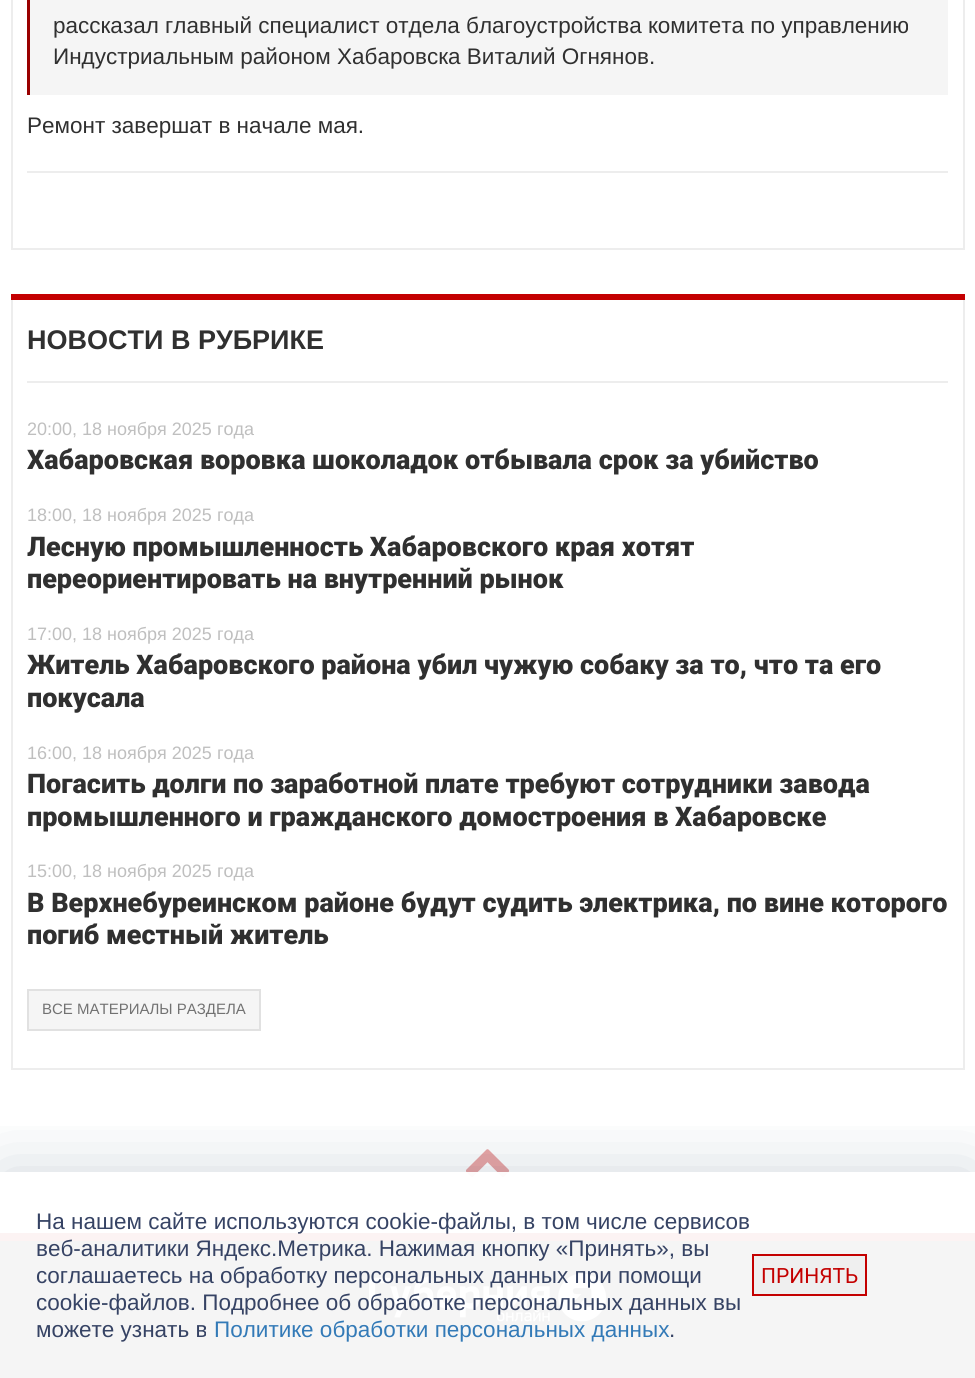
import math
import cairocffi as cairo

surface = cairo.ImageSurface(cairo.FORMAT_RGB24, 975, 1378)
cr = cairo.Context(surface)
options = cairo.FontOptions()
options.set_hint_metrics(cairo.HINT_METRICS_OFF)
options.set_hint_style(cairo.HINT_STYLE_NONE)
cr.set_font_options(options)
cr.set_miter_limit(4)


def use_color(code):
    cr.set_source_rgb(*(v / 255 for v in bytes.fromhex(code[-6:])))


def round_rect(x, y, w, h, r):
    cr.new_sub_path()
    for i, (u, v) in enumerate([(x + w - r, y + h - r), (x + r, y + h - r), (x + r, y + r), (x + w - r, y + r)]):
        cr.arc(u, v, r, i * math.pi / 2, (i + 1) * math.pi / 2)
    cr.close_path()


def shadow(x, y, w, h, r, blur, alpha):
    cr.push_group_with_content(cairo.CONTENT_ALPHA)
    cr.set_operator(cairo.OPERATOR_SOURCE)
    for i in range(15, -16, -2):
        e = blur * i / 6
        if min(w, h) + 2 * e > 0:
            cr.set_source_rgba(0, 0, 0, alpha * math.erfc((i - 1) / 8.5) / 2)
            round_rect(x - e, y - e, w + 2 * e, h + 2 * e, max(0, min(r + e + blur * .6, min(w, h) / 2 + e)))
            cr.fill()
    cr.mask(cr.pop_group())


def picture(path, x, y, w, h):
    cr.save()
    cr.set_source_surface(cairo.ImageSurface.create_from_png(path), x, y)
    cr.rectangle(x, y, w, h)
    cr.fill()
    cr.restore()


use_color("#ffffff")
cr.paint()
use_color("#ededed")
cr.rectangle(11, 248, 954, 2)
cr.fill()
cr.rectangle(963, 0, 2, 248)
cr.fill()
cr.rectangle(11, 0, 2, 248)
cr.fill()
cr.rectangle(27, 171, 921, 2)
cr.fill()
use_color("#f5f5f5")
cr.rectangle(30, 0, 918, 95)
cr.fill()
use_color("#990000")
cr.rectangle(27, 0, 3, 95)
cr.fill()
cr.select_font_face("Liberation Sans")
cr.set_font_size(22.5)
use_color("#303030")
cr.move_to(53, 33)
cr.show_text("рассказал главный специалист отдела благоустройства комитета по управлению")
cr.move_to(53, 64)
cr.show_text("Индустриальным районом Хабаровска Виталий Огнянов.")
cr.move_to(27, 133)
cr.show_text("Ремонт завершат в начале мая.")
use_color("#c40001")
cr.rectangle(11, 294, 954, 6)
cr.fill()
use_color("#ededed")
cr.rectangle(11, 1068, 954, 2)
cr.fill()
cr.rectangle(963, 300, 2, 768)
cr.fill()
cr.rectangle(11, 300, 2, 768)
cr.fill()
cr.rectangle(27, 381, 921, 2)
cr.fill()
cr.select_font_face("Liberation Sans", cairo.FONT_SLANT_NORMAL, cairo.FONT_WEIGHT_BOLD)
cr.set_font_size(27)
use_color("#303030")
cr.move_to(27, 349)
cr.show_text("НОВОСТИ В РУБРИКЕ")
cr.select_font_face("Liberation Sans")
cr.set_font_size(18)
use_color("#bfbfbf")
cr.move_to(27, 435)
cr.show_text("20:00, 18 ноября 2025 года")
cr.select_font_face("Roboto Black")
cr.set_font_size(27)
use_color("#303030")
cr.move_to(27, 469)
cr.show_text("Хабаровская воровка шоколадок отбывала срок за убийство")
cr.select_font_face("Liberation Sans")
cr.set_font_size(18)
use_color("#bfbfbf")
cr.move_to(27, 521)
cr.show_text("18:00, 18 ноября 2025 года")
cr.select_font_face("Roboto Black")
cr.set_font_size(27)
use_color("#303030")
cr.move_to(27, 556)
cr.show_text("Лесную промышленность Хабаровского края хотят")
cr.move_to(27, 588)
cr.show_text("переориентировать на внутренний рынок")
cr.select_font_face("Liberation Sans")
cr.set_font_size(18)
use_color("#bfbfbf")
cr.move_to(27, 640)
cr.show_text("17:00, 18 ноября 2025 года")
cr.select_font_face("Roboto Black")
cr.set_font_size(27)
use_color("#303030")
cr.move_to(27, 674)
cr.show_text("Житель Хабаровского района убил чужую собаку за то, что та его")
cr.move_to(27, 707)
cr.show_text("покусала")
cr.select_font_face("Liberation Sans")
cr.set_font_size(18)
use_color("#bfbfbf")
cr.move_to(27, 759)
cr.show_text("16:00, 18 ноября 2025 года")
cr.select_font_face("Roboto Black")
cr.set_font_size(27)
use_color("#303030")
cr.move_to(27, 793)
cr.show_text("Погасить долги по заработной плате требуют сотрудники завода")
cr.move_to(27, 826)
cr.show_text("промышленного и гражданского домостроения в Хабаровске")
cr.select_font_face("Liberation Sans")
cr.set_font_size(18)
use_color("#bfbfbf")
cr.move_to(27, 877)
cr.show_text("15:00, 18 ноября 2025 года")
cr.select_font_face("Roboto Black")
cr.set_font_size(27)
use_color("#303030")
cr.move_to(27, 912)
cr.show_text("В Верхнебуреинском районе будут судить электрика, по вине которого")
cr.move_to(27, 944)
cr.show_text("погиб местный житель")
use_color("#f5f5f5")
cr.rectangle(28, 990, 232, 40)
cr.fill_preserve()
use_color("#e1e1e1")
cr.stroke()
cr.select_font_face("Liberation Sans")
cr.set_font_size(15)
use_color("#727272")
cr.move_to(42, 1014)
cr.show_text("ВСЕ МАТЕРИАЛЫ РАЗДЕЛА")
picture("img1.png", 466, 1149, 43, 28)
use_color("#303030")
cr.rectangle(0, 1241, 975, 137)
cr.fill()
use_color("#c40000")
cr.rectangle(0, 1233, 975, 8)
cr.fill()
picture("img2.png", 368, 1274, 238, 48)
cr.save()
cr.rectangle(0, 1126, 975, 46)
cr.clip()
use_color("#113856")
shadow(0, 1172, 975, 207, 0, 36, 0.2)
cr.restore()
cr.set_source_rgba(1, 1, 1, 0.95)
cr.rectangle(0, 1172, 975, 206)
cr.fill()
cr.set_font_size(22.5)
use_color("#364364")
cr.move_to(36, 1229)
cr.show_text("На нашем сайте используются cookie-файлы, в том числе сервисов")
cr.move_to(36, 1256)
cr.show_text("веб-аналитики Яндекс.Метрика. Нажимая кнопку «Принять», вы")
cr.move_to(36, 1283)
cr.show_text("соглашаетесь на обработку персональных данных при помощи")
cr.move_to(36, 1310)
cr.show_text("cookie-файлов. Подробнее об обработке персональных данных вы")
cr.move_to(36, 1337)
cr.show_text("можете узнать в")
use_color("#337ab7")
cr.move_to(214, 1337)
cr.show_text("Политике обработки персональных данных")
use_color("#364364")
cr.move_to(669, 1337)
cr.show_text(".")
use_color("#efefef")
cr.rectangle(753, 1255, 113, 40)
cr.fill_preserve()
use_color("#c40000")
cr.stroke()
cr.select_font_face("Roboto")
cr.set_font_size(21)
cr.move_to(761, 1283)
cr.show_text("ПРИНЯТЬ")
surface.write_to_png("result.png")
